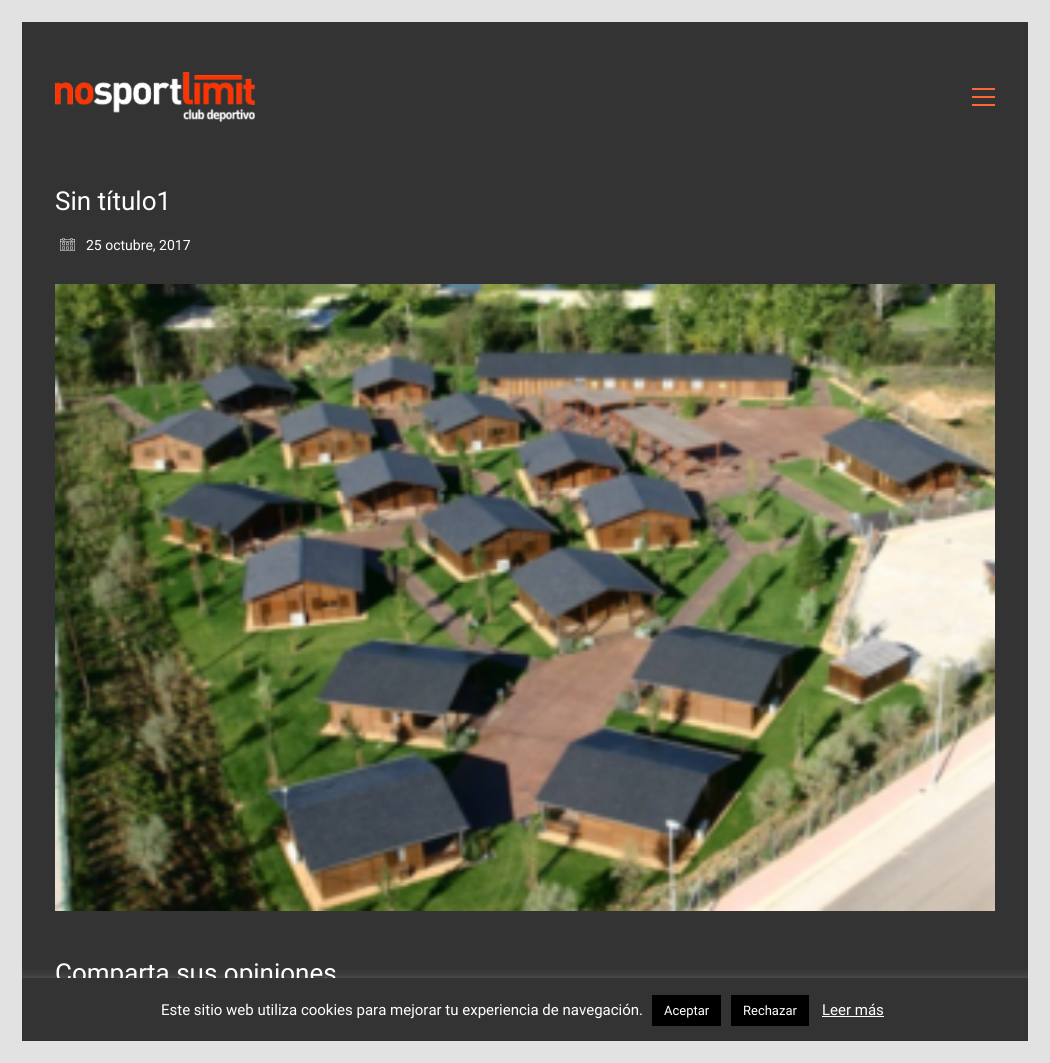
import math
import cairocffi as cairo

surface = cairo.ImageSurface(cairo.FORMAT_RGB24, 1050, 1063)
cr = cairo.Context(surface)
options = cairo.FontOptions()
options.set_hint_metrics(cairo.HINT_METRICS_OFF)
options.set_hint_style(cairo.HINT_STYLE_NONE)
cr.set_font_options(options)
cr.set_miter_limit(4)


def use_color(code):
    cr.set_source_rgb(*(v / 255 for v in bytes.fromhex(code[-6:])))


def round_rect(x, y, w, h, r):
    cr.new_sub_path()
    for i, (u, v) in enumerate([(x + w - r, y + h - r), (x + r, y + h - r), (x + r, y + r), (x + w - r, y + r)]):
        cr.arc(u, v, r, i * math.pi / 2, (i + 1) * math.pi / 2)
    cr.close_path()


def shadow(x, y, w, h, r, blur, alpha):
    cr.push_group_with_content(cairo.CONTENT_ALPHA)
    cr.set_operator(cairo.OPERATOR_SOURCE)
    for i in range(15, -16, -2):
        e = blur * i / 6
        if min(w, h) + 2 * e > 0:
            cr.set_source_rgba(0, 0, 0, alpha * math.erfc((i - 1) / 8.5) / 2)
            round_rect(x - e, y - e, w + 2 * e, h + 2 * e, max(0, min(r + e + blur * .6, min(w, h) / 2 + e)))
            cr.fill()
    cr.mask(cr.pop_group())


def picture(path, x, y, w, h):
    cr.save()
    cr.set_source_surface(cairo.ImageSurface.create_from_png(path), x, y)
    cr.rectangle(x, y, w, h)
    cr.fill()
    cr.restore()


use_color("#333333")
cr.paint()
use_color("#acabab")
shadow(0, 977, 1050, 85, 0, 5, 0.3)
use_color("#e2e2e2")
cr.rectangle(0, 0, 22, 1063)
cr.fill()
cr.rectangle(22, 0, 1006, 22)
cr.fill()
cr.rectangle(1028, 0, 22, 1041)
cr.fill()
cr.rectangle(22, 1041, 1028, 22)
cr.fill()
picture("img1.png", 55, 72, 200, 50)
use_color("#ff6633")
cr.rectangle(972, 88, 23, 2)
cr.fill()
cr.rectangle(972, 96, 23, 2)
cr.fill()
cr.rectangle(972, 104, 23, 2)
cr.fill()
cr.select_font_face("Roboto")
cr.set_font_size(26)
use_color("#ffffff")
cr.move_to(55, 210)
cr.show_text("Sin título1")
picture("img2.png", 60, 238, 15, 13)
cr.set_font_size(14)
cr.move_to(86, 250)
cr.show_text("25 octubre, 2017")
picture("img3.png", 55, 284, 940, 627)
cr.set_font_size(26)
cr.move_to(55, 982)
cr.show_text("Comparta sus opiniones")
use_color("#333333")
cr.rectangle(22, 978, 1006, 63)
cr.fill()
cr.set_font_size(15)
use_color("#ffffff")
cr.move_to(161, 1015)
cr.show_text("Este sitio web utiliza cookies para mejorar tu experiencia de navegación.")
use_color("#000000")
cr.rectangle(652, 995, 69, 31)
cr.fill()
cr.set_font_size(13)
use_color("#ffffff")
cr.move_to(664, 1015)
cr.show_text("Aceptar")
use_color("#000000")
cr.rectangle(731, 995, 78, 31)
cr.fill()
use_color("#ffffff")
cr.move_to(743, 1015)
cr.show_text("Rechazar")
cr.set_font_size(15)
cr.move_to(822, 1015)
cr.show_text("Leer más")
cr.rectangle(822, 1016, 62, 1)
cr.fill()
surface.write_to_png("result.png")
